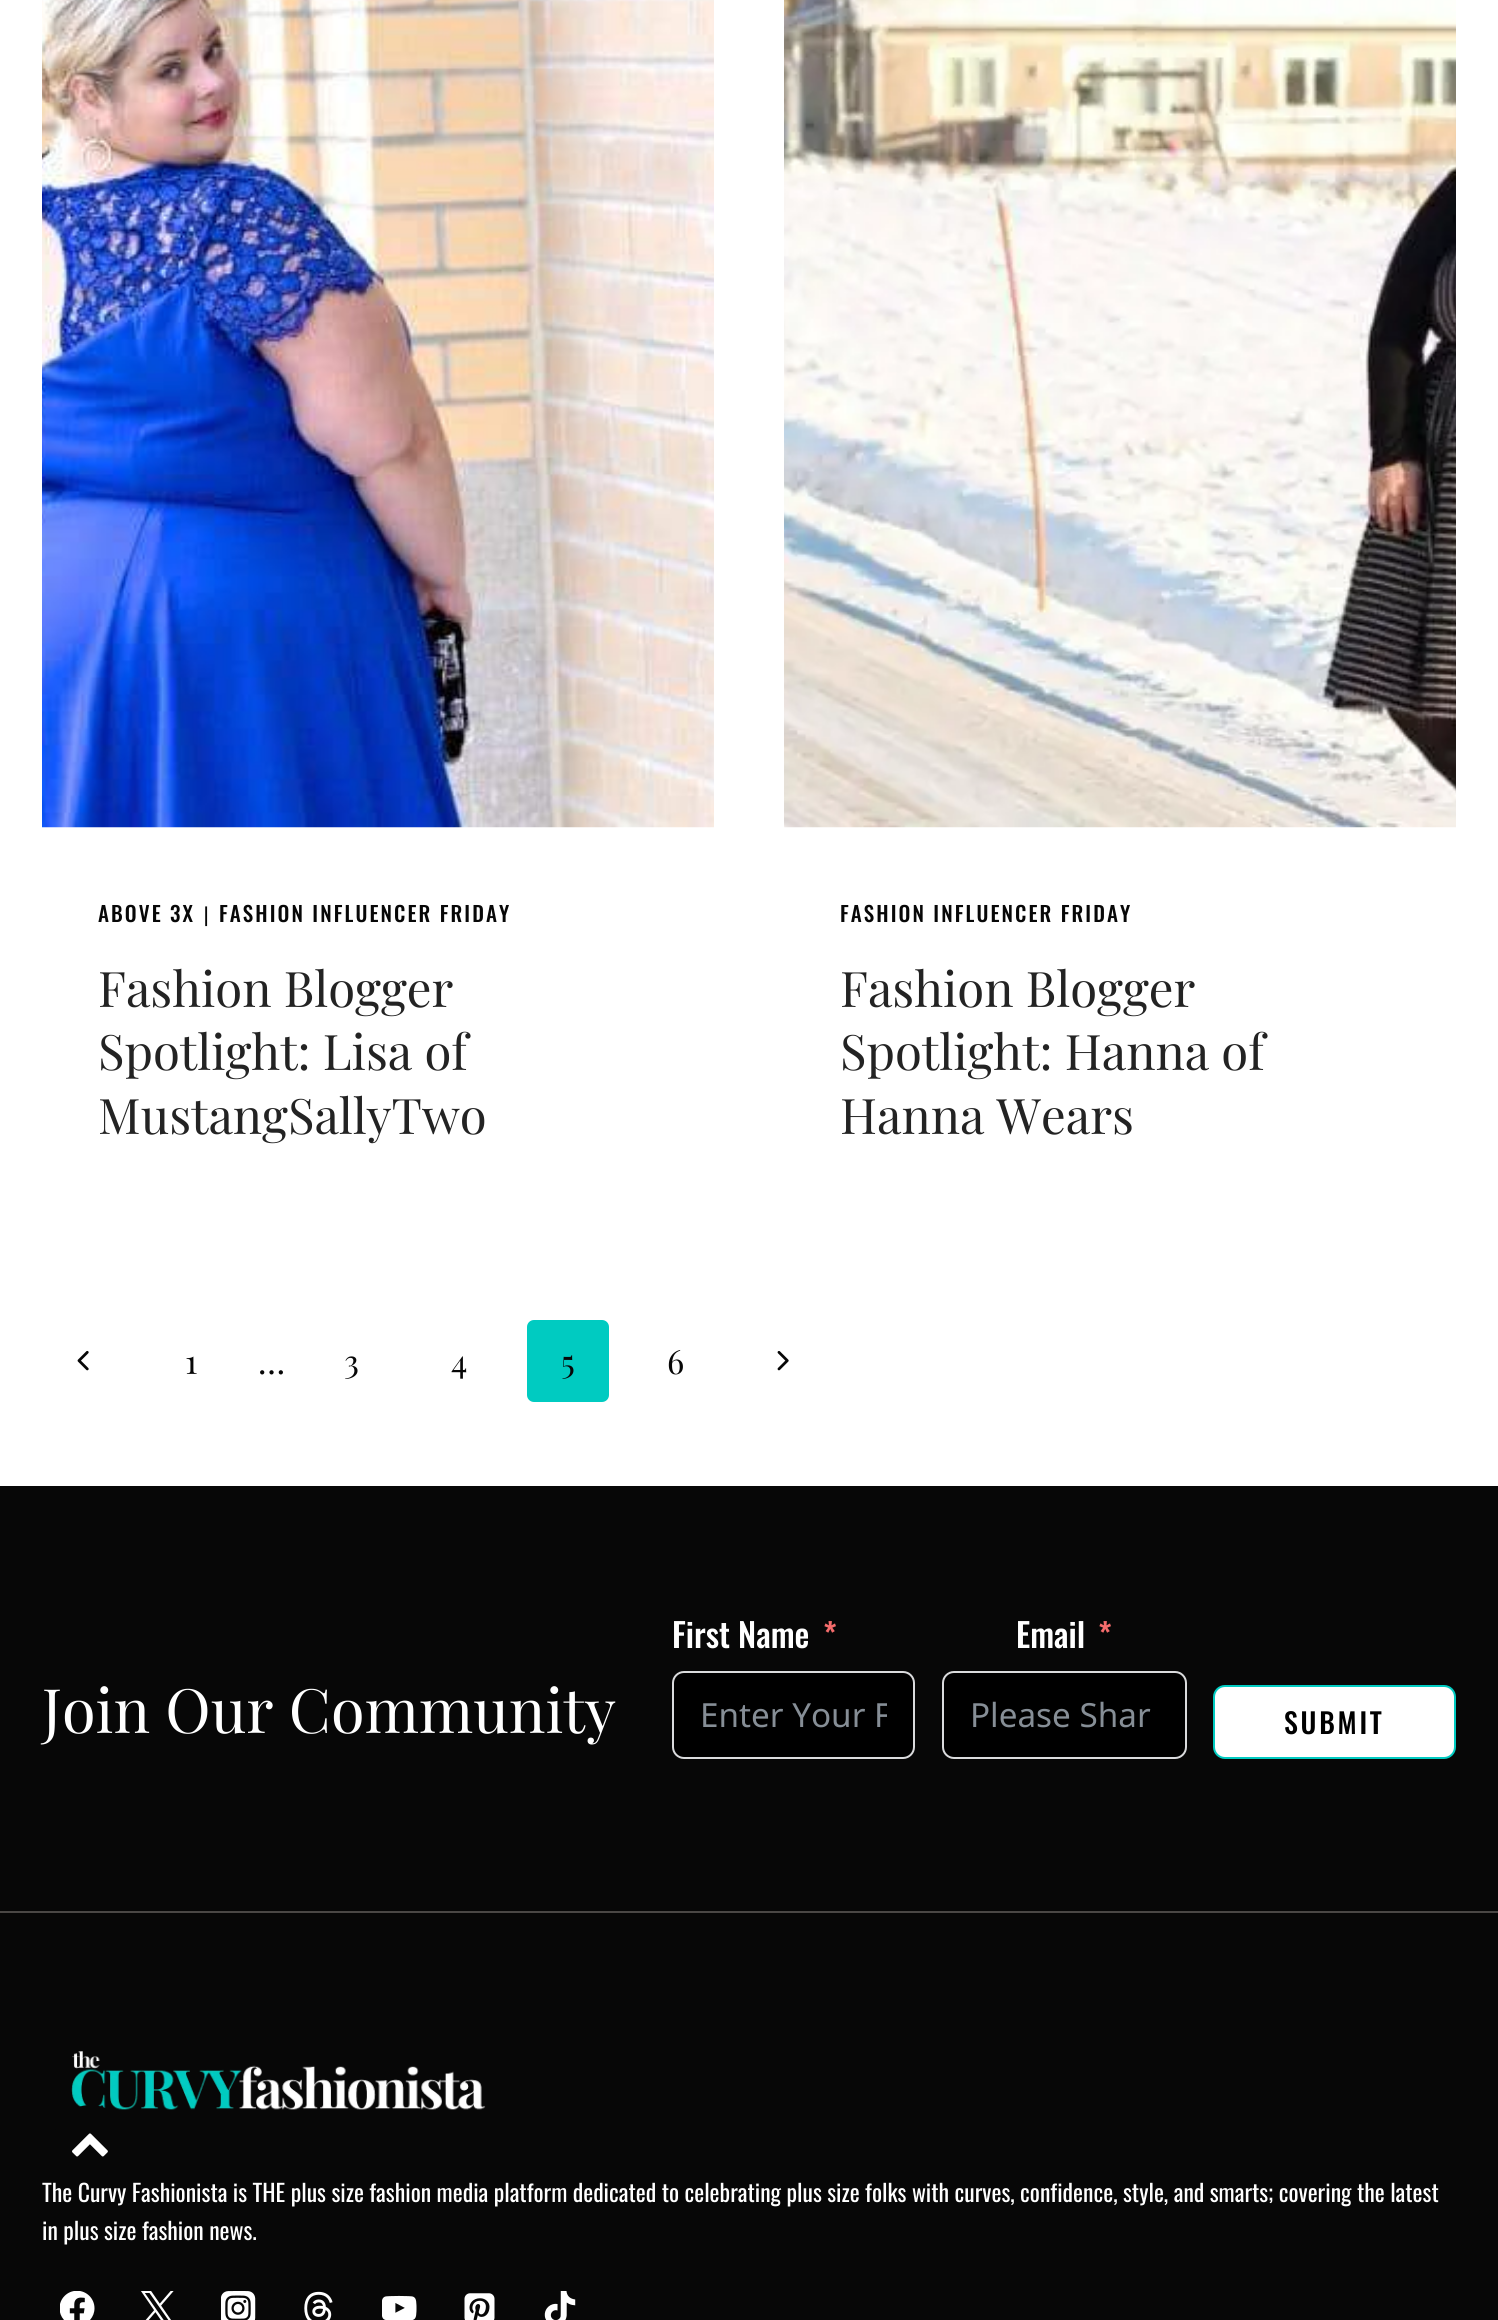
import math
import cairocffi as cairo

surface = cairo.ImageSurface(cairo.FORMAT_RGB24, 1498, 2320)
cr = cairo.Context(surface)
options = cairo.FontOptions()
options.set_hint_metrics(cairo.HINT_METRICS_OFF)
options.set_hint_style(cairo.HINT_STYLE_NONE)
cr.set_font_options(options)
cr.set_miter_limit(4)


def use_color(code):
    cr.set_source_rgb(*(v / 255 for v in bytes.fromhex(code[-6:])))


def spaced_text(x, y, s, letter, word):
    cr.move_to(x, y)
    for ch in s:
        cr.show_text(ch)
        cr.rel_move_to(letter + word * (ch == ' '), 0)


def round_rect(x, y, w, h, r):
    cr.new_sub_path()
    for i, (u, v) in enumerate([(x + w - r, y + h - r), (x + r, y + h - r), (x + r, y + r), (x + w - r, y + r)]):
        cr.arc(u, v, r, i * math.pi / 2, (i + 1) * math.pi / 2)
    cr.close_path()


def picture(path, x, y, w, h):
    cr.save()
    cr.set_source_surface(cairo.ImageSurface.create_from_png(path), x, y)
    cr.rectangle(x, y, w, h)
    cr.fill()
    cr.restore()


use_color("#ffffff")
cr.paint()
picture("img1.png", 42, 0, 672, 828)
cr.select_font_face("Oswald Medium")
cr.set_font_size(21)
use_color("#070707")
spaced_text(98, 922, "ABOVE 3X", 2.1, 0)
cr.select_font_face("Montserrat Thin")
spaced_text(203, 922, "|", 2.1, 0)
cr.select_font_face("Oswald Medium")
spaced_text(219, 922, "FASHION INFLUENCER FRIDAY", 2.1, 0)
cr.select_font_face("Playfair Display")
cr.set_font_size(49)
use_color("#232323")
cr.move_to(98, 1007)
cr.show_text("Fashion Blogger")
cr.move_to(98, 1070)
cr.show_text("Spotlight: Lisa of")
cr.move_to(98, 1134)
cr.show_text("MustangSallyTwo")
picture("img2.png", 784, 0, 672, 828)
cr.select_font_face("Oswald Medium")
cr.set_font_size(21)
use_color("#070707")
spaced_text(840, 922, "FASHION INFLUENCER FRIDAY", 2.1, 0)
cr.select_font_face("Playfair Display")
cr.set_font_size(49)
use_color("#232323")
cr.move_to(840, 1007)
cr.show_text("Fashion Blogger")
cr.move_to(840, 1070)
cr.show_text("Spotlight: Hanna of")
cr.move_to(840, 1134)
cr.show_text("Hanna Wears")
picture("img3.png", 77, 1350, 12, 21)
cr.set_font_size(33.25)
use_color("#070707")
cr.move_to(185, 1374)
cr.show_text("1")
cr.move_to(258, 1374)
cr.show_text("…")
cr.move_to(344, 1374)
cr.show_text("3")
cr.move_to(451, 1374)
cr.show_text("4")
use_color("#00cbc1")
round_rect(529, 1322, 78, 78, 5)
cr.fill_preserve()
cr.set_line_width(4)
cr.stroke()
use_color("#070707")
cr.move_to(561, 1374)
cr.show_text("5")
cr.move_to(667, 1374)
cr.show_text("6")
picture("img4.png", 777, 1351, 12, 20)
cr.rectangle(0, 1486, 1498, 425)
cr.fill()
cr.set_font_size(61.25)
use_color("#ffffff")
cr.move_to(42, 1733)
cr.show_text("Join Our Community")
cr.select_font_face("Oswald Medium")
cr.set_font_size(33.25)
cr.move_to(672, 1648)
cr.show_text("First Name")
use_color("#f56c6c")
cr.move_to(823, 1648)
cr.show_text("*")
use_color("#000000")
round_rect(673, 1672, 241, 86, 11)
cr.fill_preserve()
use_color("#dadbdd")
cr.set_line_width(2)
cr.stroke()
cr.save()
cr.rectangle(700, 1692, 187, 46)
cr.clip()
cr.select_font_face("Noto Sans")
use_color("#868e96")
cr.move_to(700, 1727)
cr.show_text("Enter Your F")
cr.restore()
use_color("#ffffff")
cr.move_to(1016, 1648)
cr.show_text("Email")
use_color("#f56c6c")
cr.move_to(1098, 1648)
cr.show_text("*")
use_color("#000000")
round_rect(943, 1672, 243, 86, 11)
cr.fill_preserve()
use_color("#dadbdd")
cr.stroke()
cr.select_font_face("Noto Sans")
use_color("#868e96")
cr.move_to(970, 1727)
cr.show_text("Please Shar")
use_color("#ffffff")
round_rect(1214, 1686, 241, 72, 11)
cr.fill_preserve()
use_color("#00cbc1")
cr.stroke()
cr.select_font_face("Oswald Medium")
cr.set_font_size(28)
use_color("#000000")
spaced_text(1284, 1734, "SUBMIT", 2.75, 0)
use_color("#070707")
cr.rectangle(0, 1913, 1498, 407)
cr.fill()
use_color("#4a4745")
cr.rectangle(0, 1911, 1498, 2)
cr.fill()
picture("img5.png", 71, 2051, 415, 59)
cr.select_font_face("Oswald")
cr.set_font_size(23.7)
use_color("#ffffff")
cr.move_to(42, 2202)
cr.show_text("The Curvy Fashionista is THE plus size fashion media platform dedicated to celebrating plus size folks with curves, confidence, style, and smarts; covering the latest")
cr.move_to(42, 2240)
cr.show_text("in plus size fashion news.")
picture("img6.png", 60, 2291, 35, 29)
picture("img7.png", 141, 2291, 33, 29)
picture("img8.png", 221, 2291, 35, 29)
picture("img9.png", 304, 2291, 29, 29)
picture("img10.png", 382, 2295, 35, 25)
picture("img11.png", 464, 2293, 31, 27)
picture("img12.png", 544, 2291, 32, 29)
use_color("#070707")
round_rect(54, 2106, 73, 74, 36.5)
cr.fill_preserve()
cr.stroke()
picture("img13.png", 72, 2133, 36, 24)
surface.write_to_png("result.png")
